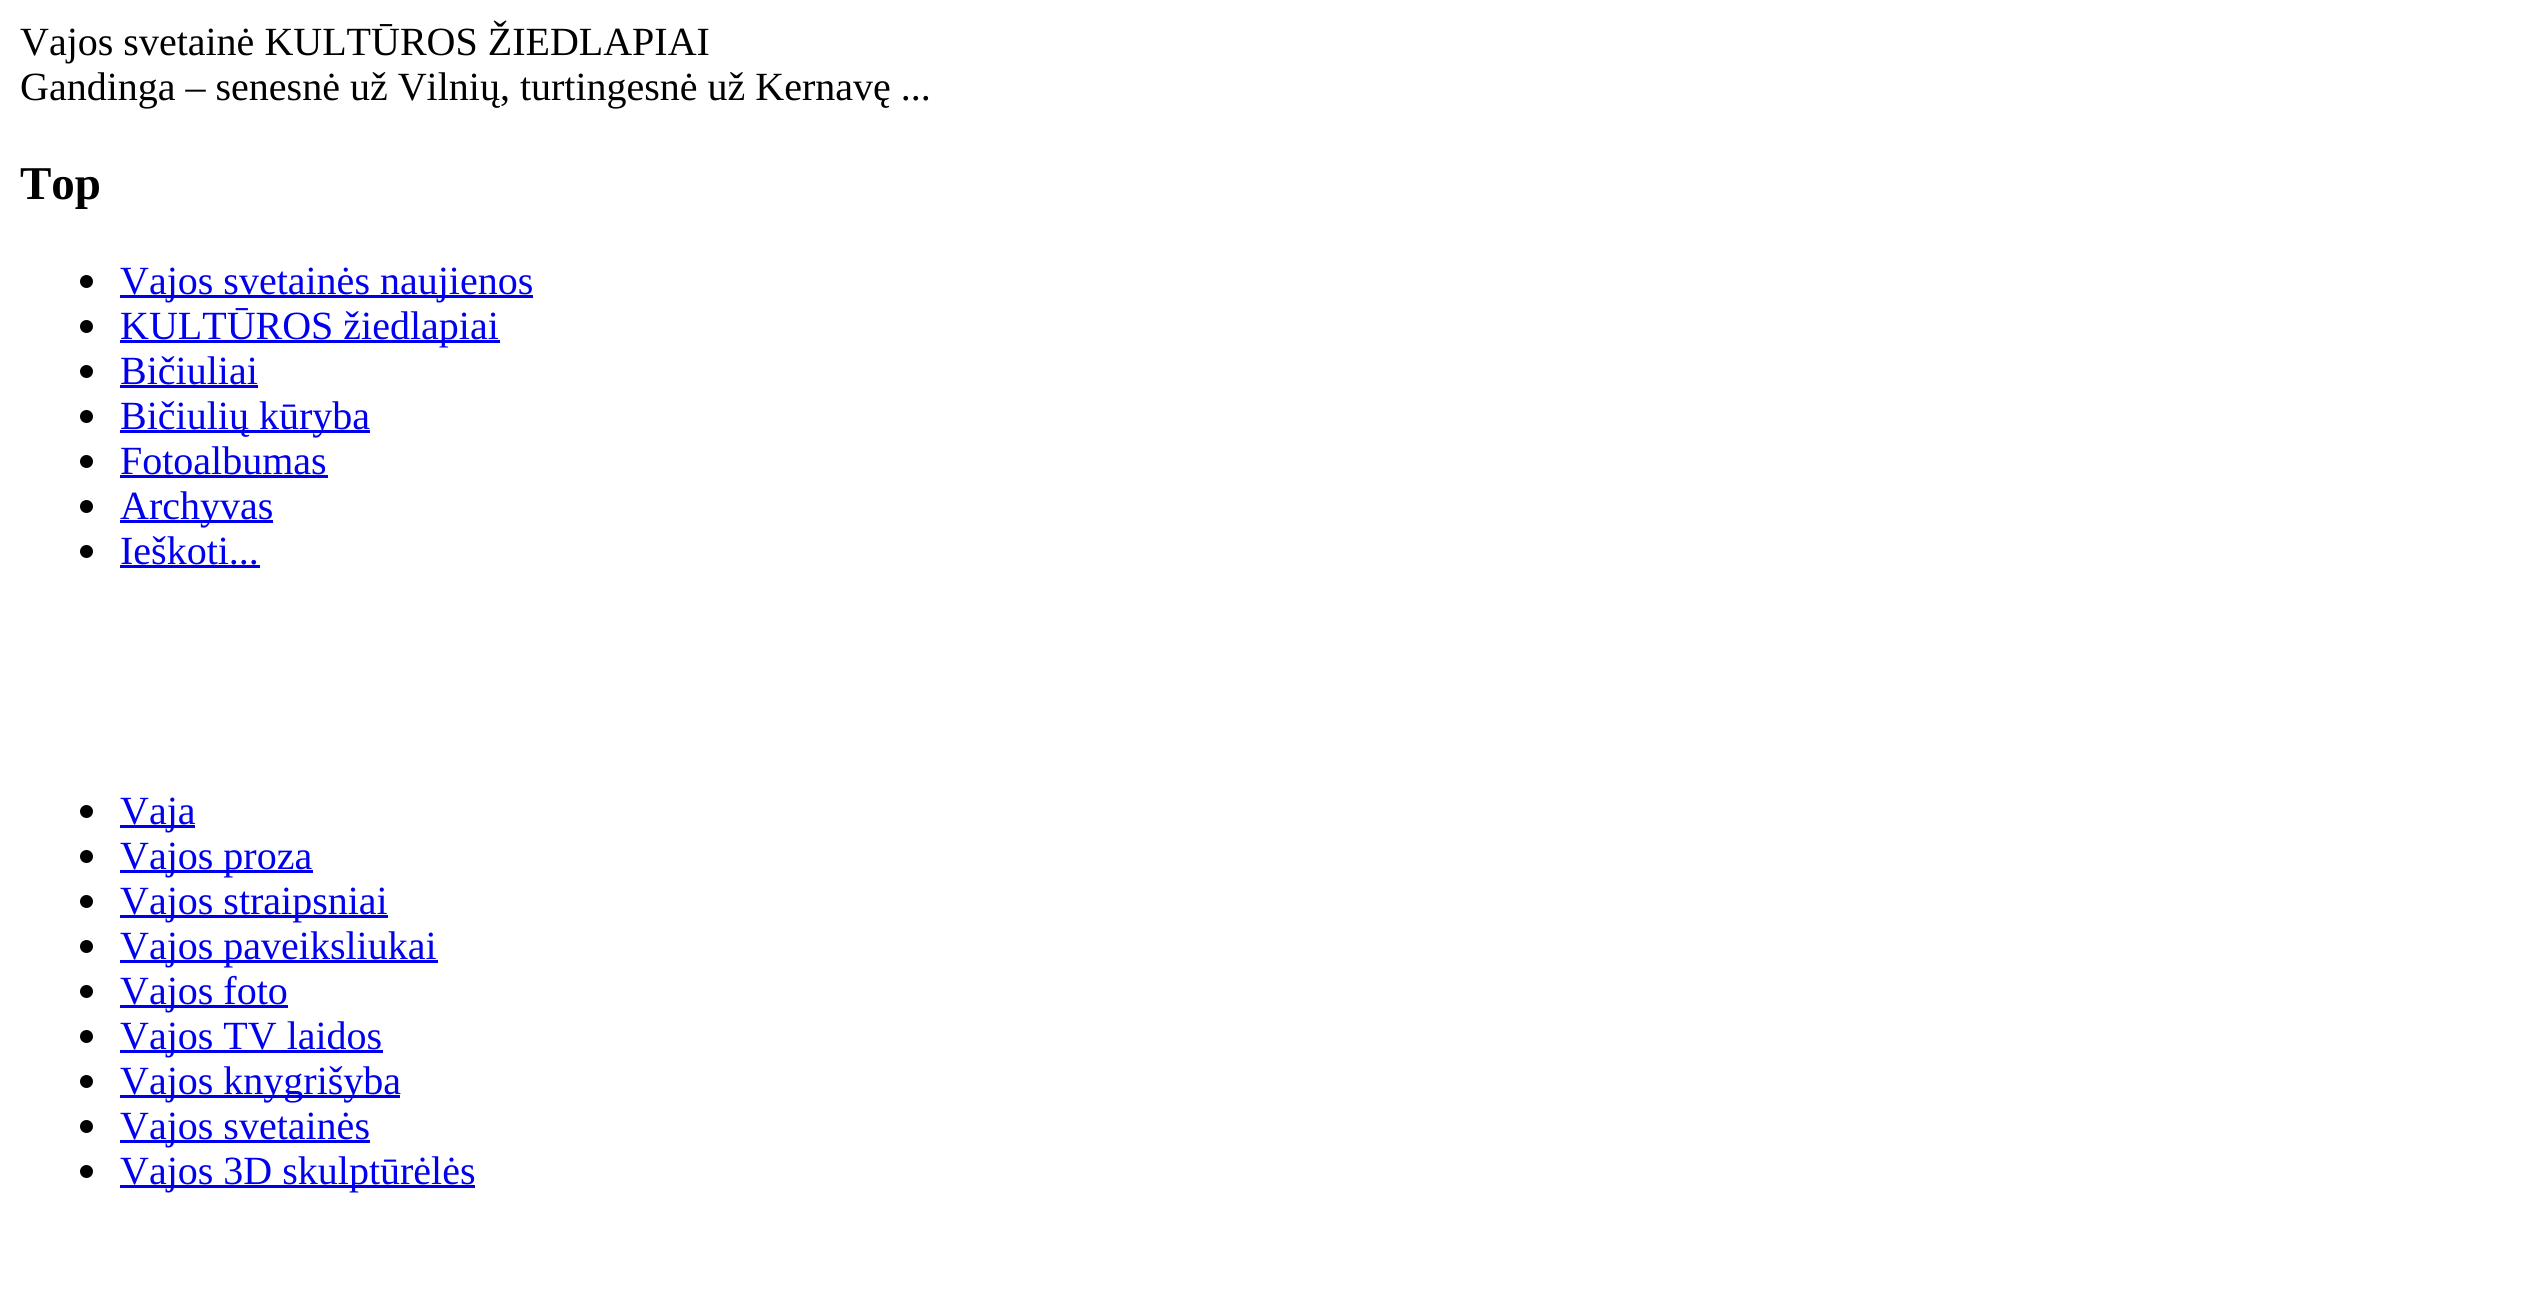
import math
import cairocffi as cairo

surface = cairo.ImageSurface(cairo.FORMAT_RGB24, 2531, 1303)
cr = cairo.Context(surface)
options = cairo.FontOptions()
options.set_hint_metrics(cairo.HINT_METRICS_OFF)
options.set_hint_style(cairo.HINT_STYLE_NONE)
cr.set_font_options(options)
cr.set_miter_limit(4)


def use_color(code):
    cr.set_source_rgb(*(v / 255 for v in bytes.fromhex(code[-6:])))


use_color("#ffffff")
cr.paint()
cr.select_font_face("Liberation Serif")
cr.set_font_size(40)
use_color("#000000")
cr.move_to(20, 55)
cr.show_text("Vajos svetainė KULTŪROS ŽIEDLAPIAI")
cr.move_to(20, 100)
cr.show_text("Gandinga – senesnė už Vilnių, turtingesnė už Kernavę ...")
cr.select_font_face("Liberation Serif", cairo.FONT_SLANT_NORMAL, cairo.FONT_WEIGHT_BOLD)
cr.set_font_size(47)
cr.move_to(20, 199)
cr.show_text("Top")
cr.new_path()
cr.arc(86.5, 281.5, 6.5, 0, 2 * math.pi)
cr.fill()
use_color("#0000ee")
cr.rectangle(120, 295, 413, 3)
cr.fill()
cr.select_font_face("Liberation Serif")
cr.set_font_size(40)
cr.move_to(120, 294)
cr.show_text("Vajos svetainės naujienos")
use_color("#000000")
cr.new_path()
cr.arc(86.5, 326.5, 6.5, 0, 2 * math.pi)
cr.fill()
use_color("#0000ee")
cr.rectangle(120, 340, 380, 3)
cr.fill()
cr.move_to(120, 339)
cr.show_text("KULTŪROS žiedlapiai")
use_color("#000000")
cr.new_path()
cr.arc(86.5, 371.5, 6.5, 0, 2 * math.pi)
cr.fill()
use_color("#0000ee")
cr.move_to(120, 384)
cr.show_text("Bičiuliai")
cr.rectangle(120, 385, 138, 3)
cr.fill()
use_color("#000000")
cr.arc(86.5, 416.5, 6.5, 0, 2 * math.pi)
cr.fill()
use_color("#0000ee")
cr.rectangle(120, 430, 250, 3)
cr.fill()
cr.move_to(120, 429)
cr.show_text("Bičiulių kūryba")
use_color("#000000")
cr.new_path()
cr.arc(86.5, 461.5, 6.5, 0, 2 * math.pi)
cr.fill()
use_color("#0000ee")
cr.move_to(120, 474)
cr.show_text("Fotoalbumas")
cr.rectangle(120, 475, 208, 3)
cr.fill()
use_color("#000000")
cr.arc(86.5, 506.5, 6.5, 0, 2 * math.pi)
cr.fill()
use_color("#0000ee")
cr.rectangle(120, 520, 153, 3)
cr.fill()
cr.move_to(120, 519)
cr.show_text("Archyvas")
use_color("#000000")
cr.new_path()
cr.arc(86.5, 551.5, 6.5, 0, 2 * math.pi)
cr.fill()
use_color("#0000ee")
cr.move_to(120, 564)
cr.show_text("Ieškoti...")
cr.rectangle(120, 565, 140, 3)
cr.fill()
use_color("#000000")
cr.arc(86.5, 811.5, 6.5, 0, 2 * math.pi)
cr.fill()
use_color("#0000ee")
cr.rectangle(120, 825, 75, 3)
cr.fill()
cr.move_to(120, 824)
cr.show_text("Vaja")
use_color("#000000")
cr.new_path()
cr.arc(86.5, 856.5, 6.5, 0, 2 * math.pi)
cr.fill()
use_color("#0000ee")
cr.rectangle(120, 870, 193, 3)
cr.fill()
cr.move_to(120, 869)
cr.show_text("Vajos proza")
use_color("#000000")
cr.new_path()
cr.arc(86.5, 901.5, 6.5, 0, 2 * math.pi)
cr.fill()
use_color("#0000ee")
cr.rectangle(120, 915, 268, 3)
cr.fill()
cr.move_to(120, 914)
cr.show_text("Vajos straipsniai")
use_color("#000000")
cr.new_path()
cr.arc(86.5, 946.5, 6.5, 0, 2 * math.pi)
cr.fill()
use_color("#0000ee")
cr.rectangle(120, 960, 318, 3)
cr.fill()
cr.move_to(120, 959)
cr.show_text("Vajos paveiksliukai")
use_color("#000000")
cr.new_path()
cr.arc(86.5, 991.5, 6.5, 0, 2 * math.pi)
cr.fill()
use_color("#0000ee")
cr.rectangle(120, 1005, 168, 3)
cr.fill()
cr.move_to(120, 1004)
cr.show_text("Vajos foto")
use_color("#000000")
cr.new_path()
cr.arc(86.5, 1036.5, 6.5, 0, 2 * math.pi)
cr.fill()
use_color("#0000ee")
cr.rectangle(120, 1050, 263, 3)
cr.fill()
cr.move_to(120, 1049)
cr.show_text("Vajos TV laidos")
use_color("#000000")
cr.new_path()
cr.arc(86.5, 1081.5, 6.5, 0, 2 * math.pi)
cr.fill()
use_color("#0000ee")
cr.rectangle(120, 1095, 280, 3)
cr.fill()
cr.move_to(120, 1094)
cr.show_text("Vajos knygrišyba")
use_color("#000000")
cr.new_path()
cr.arc(86.5, 1126.5, 6.5, 0, 2 * math.pi)
cr.fill()
use_color("#0000ee")
cr.rectangle(120, 1140, 250, 3)
cr.fill()
cr.move_to(120, 1139)
cr.show_text("Vajos svetainės")
use_color("#000000")
cr.new_path()
cr.arc(86.5, 1171.5, 6.5, 0, 2 * math.pi)
cr.fill()
use_color("#0000ee")
cr.rectangle(120, 1185, 355, 3)
cr.fill()
cr.move_to(120, 1184)
cr.show_text("Vajos 3D skulptūrėlės")
surface.write_to_png("result.png")
